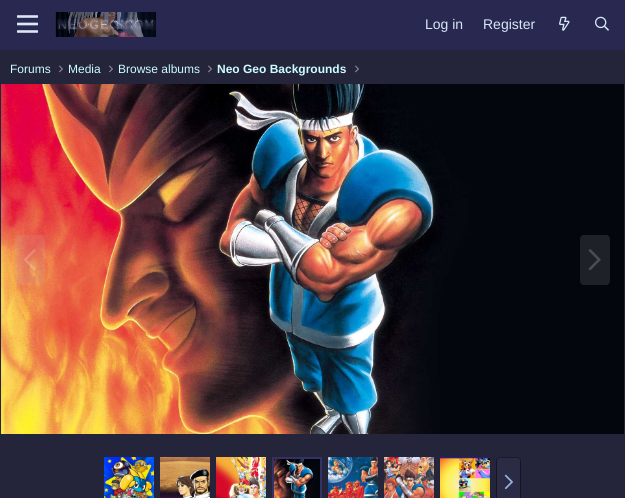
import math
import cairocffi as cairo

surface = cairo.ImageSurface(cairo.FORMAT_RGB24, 625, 498)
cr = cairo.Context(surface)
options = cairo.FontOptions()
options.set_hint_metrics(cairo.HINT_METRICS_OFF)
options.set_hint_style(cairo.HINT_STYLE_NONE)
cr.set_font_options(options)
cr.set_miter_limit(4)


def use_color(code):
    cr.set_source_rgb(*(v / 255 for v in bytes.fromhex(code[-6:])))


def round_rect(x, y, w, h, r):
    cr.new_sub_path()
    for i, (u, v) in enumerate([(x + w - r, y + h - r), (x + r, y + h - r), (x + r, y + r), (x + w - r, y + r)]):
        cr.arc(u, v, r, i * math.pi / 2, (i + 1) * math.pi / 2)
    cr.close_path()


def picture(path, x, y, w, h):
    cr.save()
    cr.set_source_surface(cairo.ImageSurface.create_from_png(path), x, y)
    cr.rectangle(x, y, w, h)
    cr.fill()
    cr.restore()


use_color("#24243a")
cr.paint()
use_color("#282850")
cr.rectangle(0, 0, 625, 50)
cr.fill()
picture("img1.png", 17, 15, 21, 18)
picture("img2.png", 55, 12, 101, 25)
cr.select_font_face("Liberation Sans")
cr.set_font_size(14)
use_color("#d8e8f8")
cr.move_to(425, 29)
cr.show_text("Log in")
cr.move_to(483, 29)
cr.show_text("Register")
picture("img3.png", 559, 16, 11, 15)
picture("img4.png", 595, 16, 14, 15)
cr.set_font_size(12)
use_color("#ccfdff")
cr.move_to(10, 73)
cr.show_text("Forums")
picture("img5.png", 59, 65, 4, 8)
cr.move_to(68, 73)
cr.show_text("Media")
picture("img5.png", 109, 65, 4, 8)
cr.move_to(118, 73)
cr.show_text("Browse albums")
picture("img5.png", 208, 65, 4, 8)
cr.select_font_face("Liberation Sans", cairo.FONT_SLANT_NORMAL, cairo.FONT_WEIGHT_BOLD)
cr.move_to(217, 73)
cr.show_text("Neo Geo Backgrounds")
picture("img5.png", 355, 65, 4, 8)
picture("img6.png", 1, 84, 623, 350)
cr.set_source_rgba(0.773, 0.773, 0.773, 0.14)
round_rect(15, 235, 30, 50, 4)
cr.fill()
picture("img7.png", 23, 249, 13, 22)
use_color("#1e2127")
round_rect(580, 235, 30, 50, 4)
cr.fill()
picture("img8.png", 588, 249, 13, 22)
picture("img9.png", 104, 457, 50, 41)
picture("img10.png", 160, 457, 50, 41)
picture("img11.png", 216, 457, 50, 41)
cr.rectangle(273, 458, 48, 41)
use_color("#323264")
cr.stroke()
picture("img12.png", 274, 459, 46, 39)
picture("img13.png", 328, 457, 50, 41)
picture("img14.png", 384, 457, 50, 41)
picture("img15.png", 440, 457, 50, 41)
use_color("#2b2b45")
round_rect(496, 457, 25, 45, 4)
cr.fill()
cr.new_path()
cr.move_to(497.5, 458.5)
cr.curve_to(498, 458, 499, 457.5, 500, 457.5)
cr.line_to(517, 457.5)
cr.curve_to(518, 457.5, 519, 458, 519.5, 458.5)
use_color("#1a1a2a")
cr.set_line_width(1)
cr.stroke()
cr.new_path()
cr.move_to(519.5, 458.5)
cr.curve_to(520, 459, 520.5, 460, 520.5, 461)
cr.line_to(520.5, 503)
cr.curve_to(520.5, 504, 520, 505, 519.5, 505.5)
cr.move_to(497.5, 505.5)
cr.curve_to(497, 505, 496.5, 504, 496.5, 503)
cr.line_to(496.5, 461)
cr.curve_to(496.5, 460, 497, 459, 497.5, 458.5)
use_color("#151521")
cr.stroke()
picture("img16.png", 504, 474, 9, 16)
surface.write_to_png("result.png")
